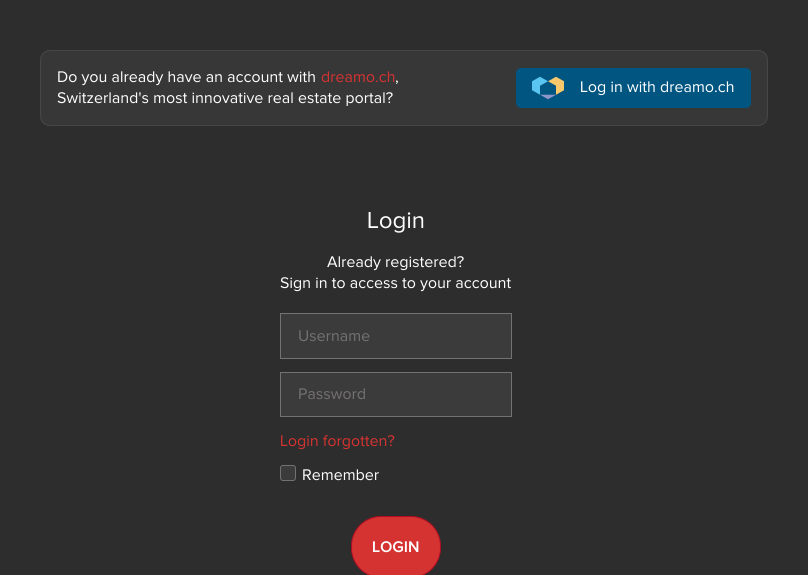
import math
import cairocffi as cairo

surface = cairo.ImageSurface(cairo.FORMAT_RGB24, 808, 575)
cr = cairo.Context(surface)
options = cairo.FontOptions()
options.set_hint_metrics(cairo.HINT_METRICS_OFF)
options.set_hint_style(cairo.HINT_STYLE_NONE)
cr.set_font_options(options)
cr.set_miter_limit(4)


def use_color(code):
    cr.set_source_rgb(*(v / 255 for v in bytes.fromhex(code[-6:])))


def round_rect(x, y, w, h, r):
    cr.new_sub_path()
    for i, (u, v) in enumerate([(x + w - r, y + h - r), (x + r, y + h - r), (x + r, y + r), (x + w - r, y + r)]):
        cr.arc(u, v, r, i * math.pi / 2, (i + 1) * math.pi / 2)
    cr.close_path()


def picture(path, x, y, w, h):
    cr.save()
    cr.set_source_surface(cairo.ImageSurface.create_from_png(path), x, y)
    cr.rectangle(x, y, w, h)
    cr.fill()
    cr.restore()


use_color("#2d2d2d")
cr.paint()
use_color("#373737")
round_rect(40.5, 50.5, 727, 75, 9.5)
cr.fill_preserve()
use_color("#474747")
cr.set_line_width(1)
cr.stroke()
picture("img1.png", 58, 71, 257, 15)
picture("img2.png", 321, 71, 74, 12)
picture("img3.png", 396, 80, 2, 4)
picture("img4.png", 57, 92, 336, 14)
use_color("#015681")
round_rect(516, 68, 235, 40, 5)
cr.fill()
picture("img5.png", 532, 76, 32, 24)
picture("img6.png", 581, 81, 74, 15)
picture("img7.png", 660, 81, 74, 12)
picture("img8.png", 368, 212, 56, 21)
picture("img9.png", 327, 256, 137, 15)
picture("img10.png", 280, 277, 231, 15)
use_color("#3c3b3b")
cr.rectangle(280.5, 313.5, 231, 45)
cr.fill_preserve()
use_color("#747171")
cr.stroke()
picture("img11.png", 299, 330, 71, 12)
use_color("#3c3b3b")
cr.rectangle(280.5, 372.5, 231, 44)
cr.fill_preserve()
use_color("#747171")
cr.stroke()
picture("img12.png", 299, 388, 66, 12)
picture("img13.png", 281, 435, 114, 15)
use_color("#3c3b3b")
round_rect(280.5, 465.5, 15, 15, 2.5)
cr.fill_preserve()
use_color("#747171")
cr.stroke()
picture("img14.png", 303, 469, 76, 12)
use_color("#d53331")
round_rect(351.5, 516.5, 89, 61, 29.5)
cr.fill_preserve()
use_color("#b00d22")
cr.stroke()
picture("img15.png", 373, 541, 46, 12)
surface.write_to_png("result.png")
